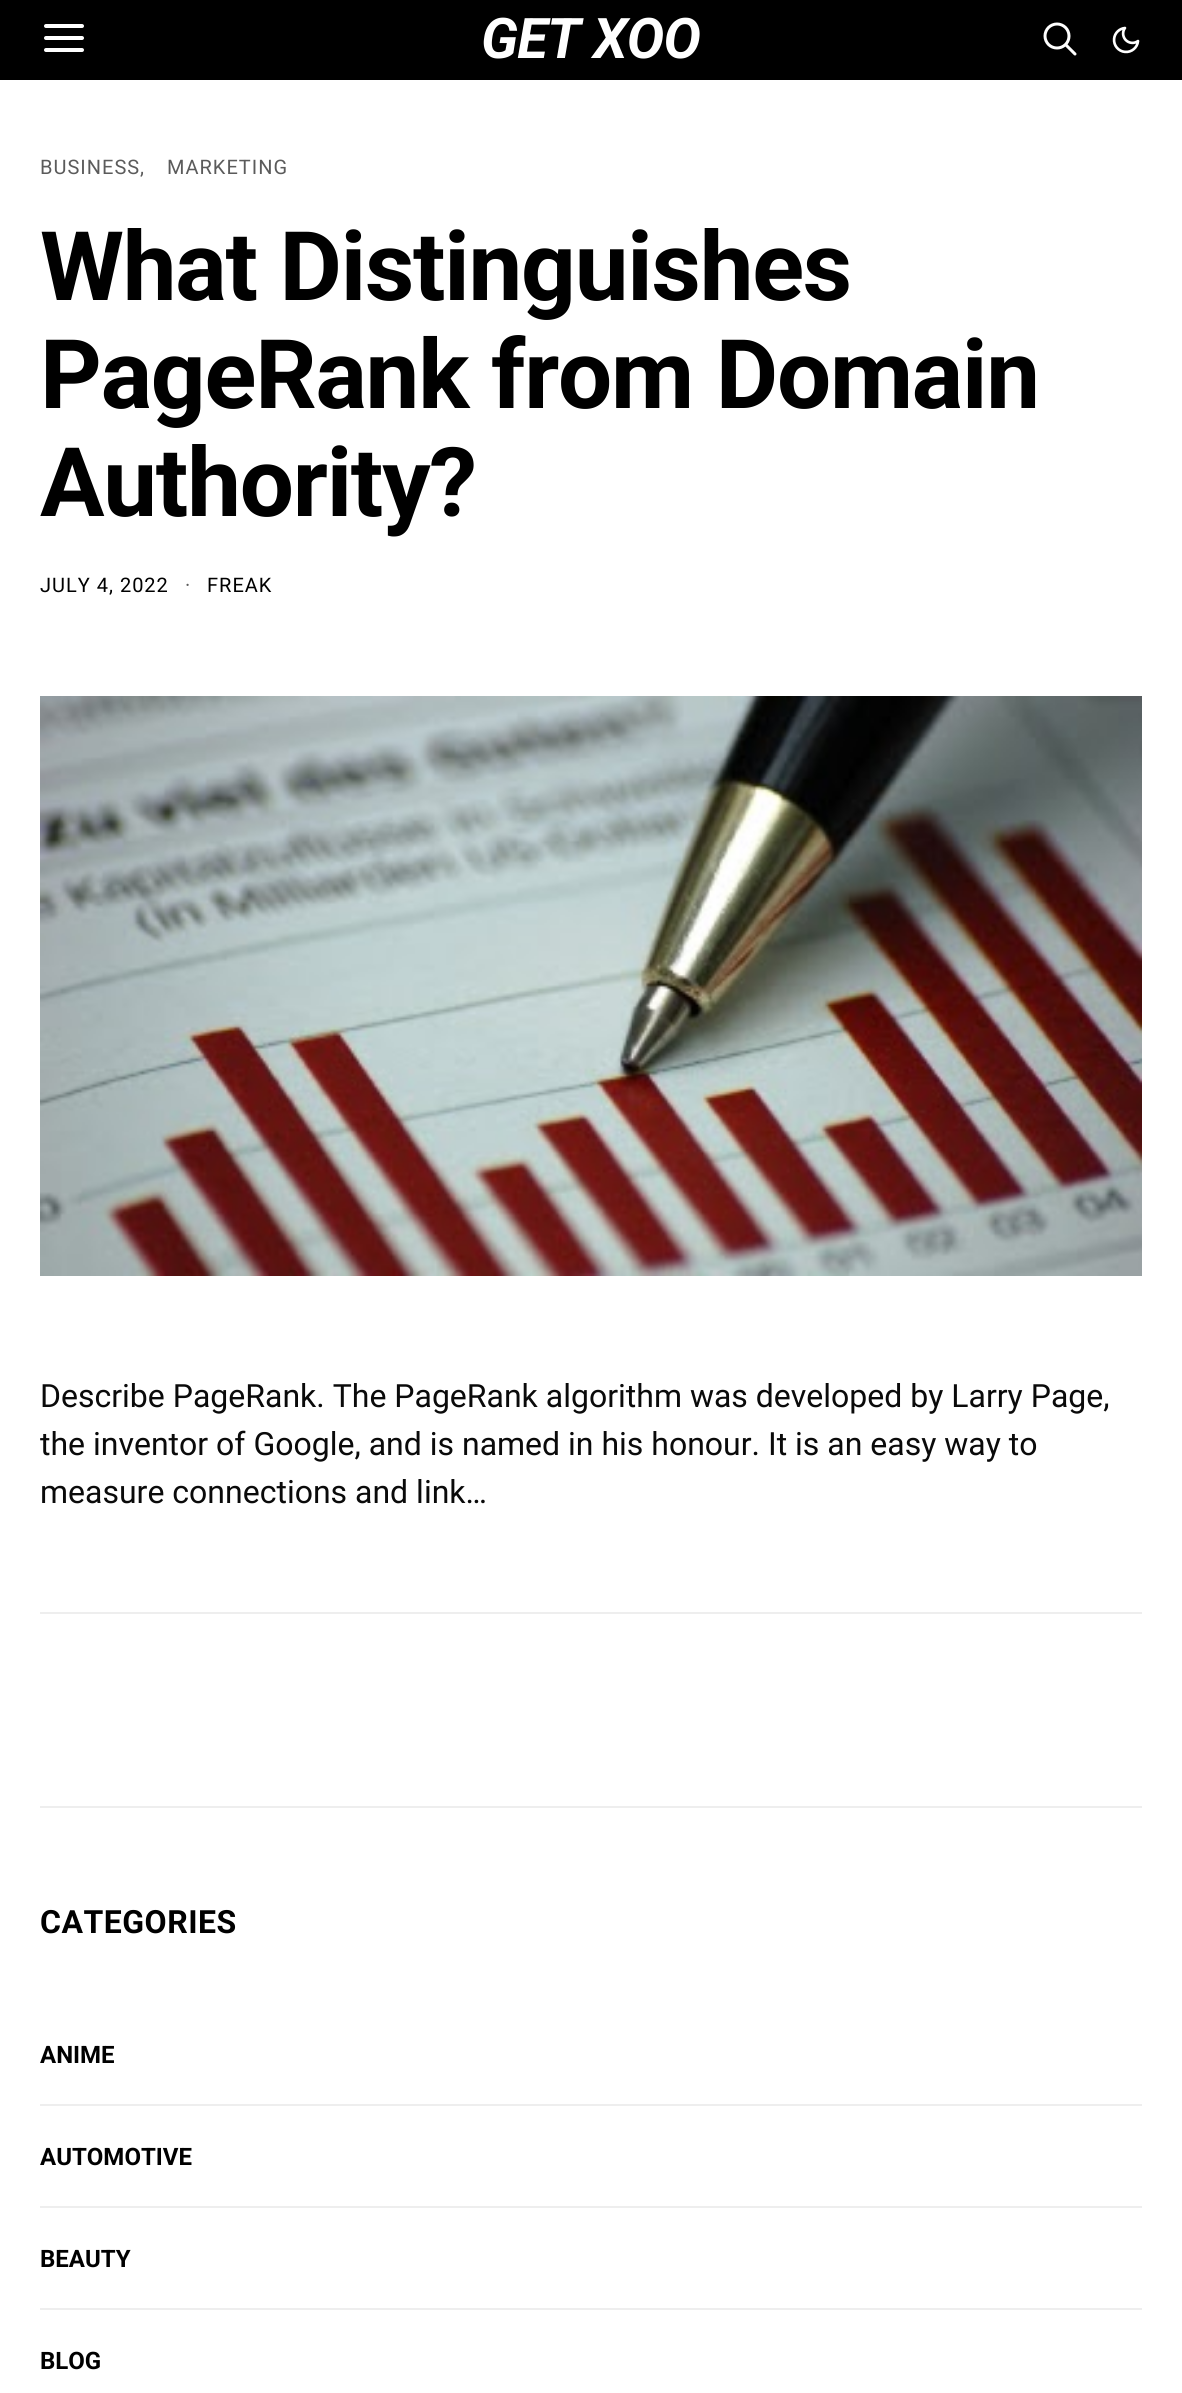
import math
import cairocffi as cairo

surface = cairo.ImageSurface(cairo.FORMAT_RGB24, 1182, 2393)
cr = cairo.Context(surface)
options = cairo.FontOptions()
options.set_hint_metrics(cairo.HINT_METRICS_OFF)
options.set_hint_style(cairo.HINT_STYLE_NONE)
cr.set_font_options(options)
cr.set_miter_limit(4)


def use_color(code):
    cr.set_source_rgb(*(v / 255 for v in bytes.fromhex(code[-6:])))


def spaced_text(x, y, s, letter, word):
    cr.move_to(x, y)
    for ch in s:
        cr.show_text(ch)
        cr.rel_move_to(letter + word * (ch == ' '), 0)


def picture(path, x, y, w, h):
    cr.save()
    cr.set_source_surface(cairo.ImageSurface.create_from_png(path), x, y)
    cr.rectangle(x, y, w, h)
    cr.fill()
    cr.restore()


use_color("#ffffff")
cr.paint()
use_color("#000000")
cr.rectangle(0, 0, 1182, 80)
cr.fill()
picture("img1.png", 44, 24, 40, 28)
cr.select_font_face("Roboto", cairo.FONT_SLANT_ITALIC, cairo.FONT_WEIGHT_BOLD)
cr.set_font_size(56)
use_color("#ffffff")
spaced_text(481, 58, "GET XOO", -0.75, 0)
picture("img2.png", 1043, 22, 34, 34)
picture("img3.png", 1112, 26, 28, 28)
use_color("#eeeeee")
cr.rectangle(40, 1806, 1102, 2)
cr.fill()
cr.select_font_face("Roboto")
cr.set_font_size(20)
use_color("#5b5b5b")
spaced_text(40, 174, "BUSINESS", 1, 0)
spaced_text(140, 174, ",", 1, 0)
spaced_text(167, 174, "MARKETING", 1, 0)
cr.select_font_face("Roboto", cairo.FONT_SLANT_NORMAL, cairo.FONT_WEIGHT_BOLD)
cr.set_font_size(96)
use_color("#000000")
spaced_text(40, 300, "What Distinguishes", -1.2, 0)
spaced_text(40, 408, "PageRank from Domain", -1.2, 0)
spaced_text(40, 516, "Authority?", -1.2, 0)
cr.select_font_face("Roboto")
cr.set_font_size(20)
spaced_text(40, 592, "JULY 4, 2022", 1, 0)
use_color("#5b5b5b")
spaced_text(185, 592, "·", 1, 0)
use_color("#000000")
spaced_text(207, 592, "FREAK", 1, 0)
picture("img4.png", 40, 696, 1102, 580)
cr.set_font_size(32)
use_color("#0a0a0a")
cr.move_to(40, 1407)
cr.show_text("Describe PageRank. The PageRank algorithm was developed by Larry Page,")
cr.move_to(40, 1455)
cr.show_text("the inventor of Google, and is named in his honour. It is an easy way to")
cr.move_to(40, 1503)
cr.show_text("measure connections and link…")
use_color("#eeeeee")
cr.rectangle(40, 1612, 1102, 2)
cr.fill()
cr.select_font_face("Roboto", cairo.FONT_SLANT_NORMAL, cairo.FONT_WEIGHT_BOLD)
use_color("#000000")
spaced_text(40, 1933, "CATEGORIES", 0.5, 0)
cr.set_font_size(24)
cr.move_to(40, 2063)
cr.show_text("ANIME")
use_color("#eeeeee")
cr.rectangle(40, 2104, 1102, 2)
cr.fill()
use_color("#000000")
cr.move_to(40, 2165)
cr.show_text("AUTOMOTIVE")
use_color("#eeeeee")
cr.rectangle(40, 2206, 1102, 2)
cr.fill()
use_color("#000000")
cr.move_to(40, 2267)
cr.show_text("BEAUTY")
use_color("#eeeeee")
cr.rectangle(40, 2308, 1102, 2)
cr.fill()
use_color("#000000")
cr.move_to(40, 2369)
cr.show_text("BLOG")
surface.write_to_png("result.png")
